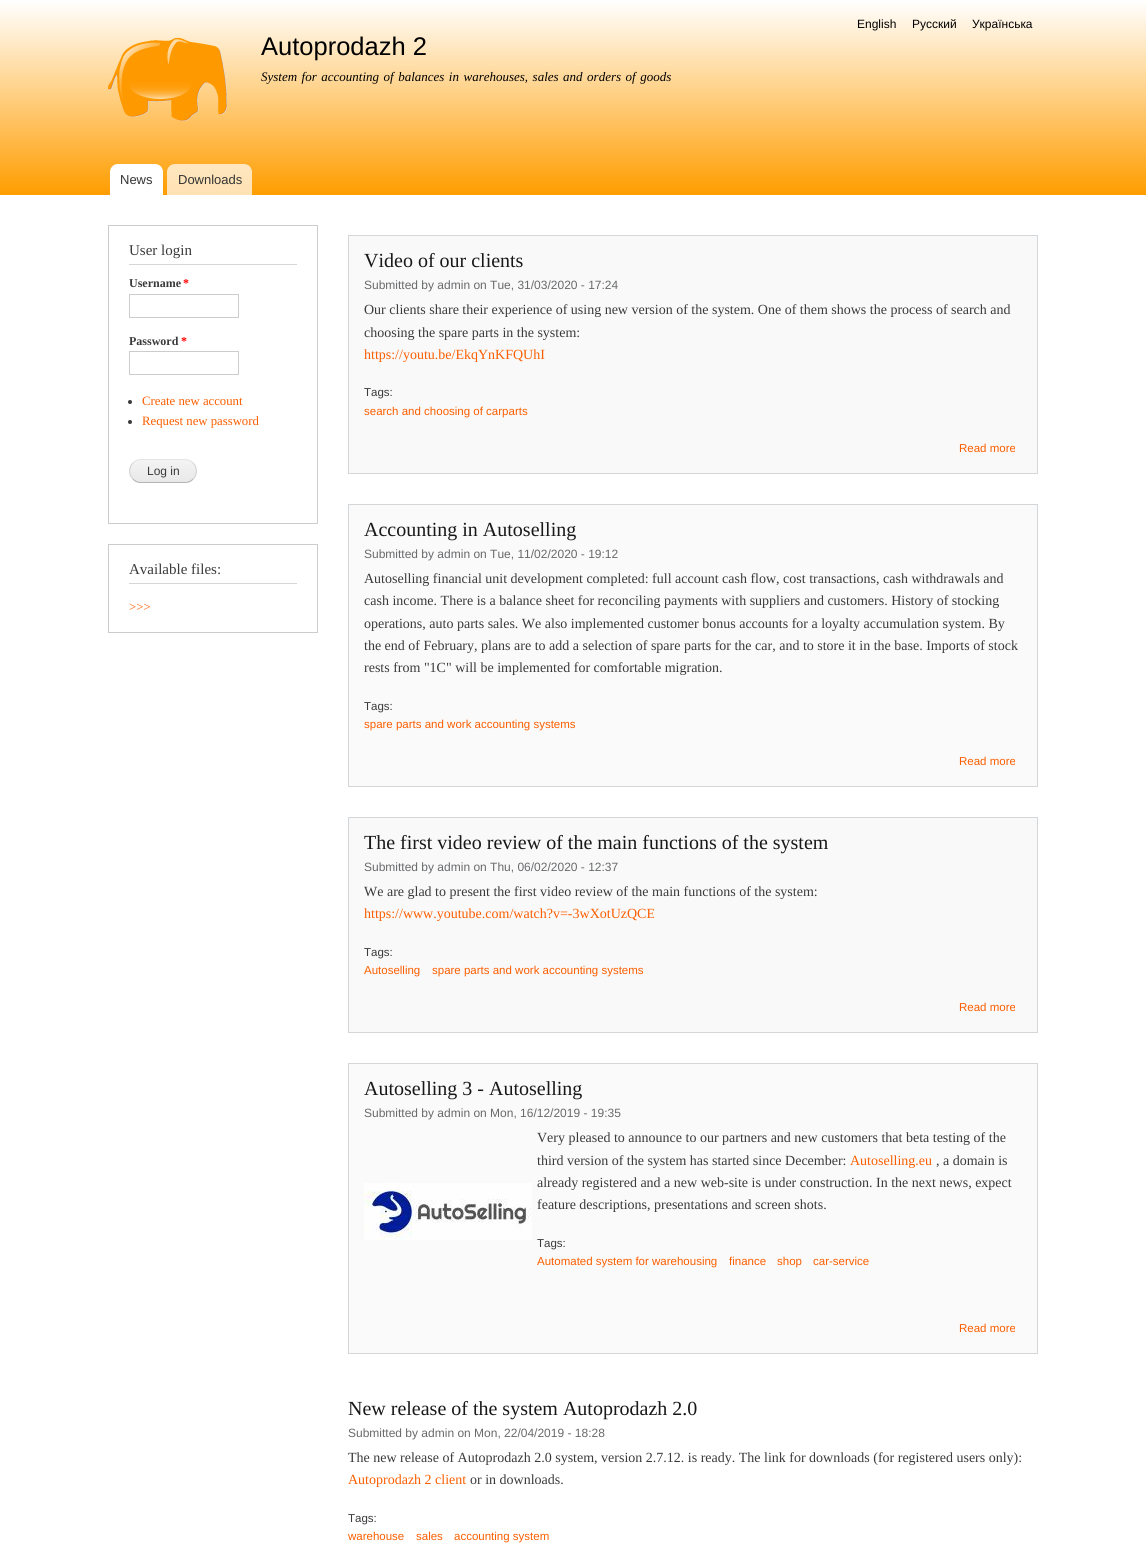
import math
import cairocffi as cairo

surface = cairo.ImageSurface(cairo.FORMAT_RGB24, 1146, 1562)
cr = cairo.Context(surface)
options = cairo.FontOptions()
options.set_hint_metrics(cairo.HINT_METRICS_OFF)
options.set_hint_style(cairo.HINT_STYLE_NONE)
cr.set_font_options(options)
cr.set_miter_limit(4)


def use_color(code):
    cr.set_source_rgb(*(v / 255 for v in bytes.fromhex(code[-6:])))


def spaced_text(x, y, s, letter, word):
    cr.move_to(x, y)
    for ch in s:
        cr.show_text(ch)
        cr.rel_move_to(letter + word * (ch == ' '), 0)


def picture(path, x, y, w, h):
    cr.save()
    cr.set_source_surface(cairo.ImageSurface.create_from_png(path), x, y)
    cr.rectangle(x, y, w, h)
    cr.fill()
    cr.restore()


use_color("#ffffff")
cr.paint()
gradient = cairo.LinearGradient(573, 0, 573, 195)
gradient.add_color_stop_rgba(0, 1, 1, 1, 1)
gradient.add_color_stop_rgba(1, 1, 0.616, 0, 1)
cr.set_source(gradient)
cr.rectangle(0, 2, 1146, 193)
cr.fill()
cr.select_font_face("Liberation Sans")
cr.set_font_size(12)
use_color("#000000")
cr.move_to(857, 28)
cr.show_text("English")
cr.move_to(912, 28)
cr.show_text("Русский")
cr.move_to(972, 28)
cr.show_text("Українська")
picture("img1.png", 108, 37, 119, 84)
cr.set_font_size(25.5)
cr.move_to(261, 55)
cr.show_text("Autoprodazh 2")
cr.select_font_face("Liberation Serif", cairo.FONT_SLANT_ITALIC)
cr.set_font_size(13)
spaced_text(261, 81, "System for accounting of balances in warehouses, sales and orders of goods", 0, 1.25)
use_color("#ffffff")
cr.new_path()
cr.move_to(118, 164)
cr.line_to(155, 164)
cr.curve_to(159.5, 164, 163, 167.5, 163, 172)
cr.line_to(163, 195)
cr.line_to(110, 195)
cr.line_to(110, 172)
cr.curve_to(110, 167.5, 113.5, 164, 118, 164)
cr.close_path()
cr.fill()
cr.select_font_face("Liberation Sans")
use_color("#333333")
cr.move_to(120, 184)
cr.show_text("News")
cr.set_source_rgba(1, 1, 1, 0.7)
cr.new_path()
cr.move_to(175, 164)
cr.line_to(244, 164)
cr.curve_to(248.5, 164, 252, 167.5, 252, 172)
cr.line_to(252, 195)
cr.line_to(167, 195)
cr.line_to(167, 172)
cr.curve_to(167, 167.5, 170.5, 164, 175, 164)
cr.close_path()
cr.fill()
use_color("#333333")
cr.move_to(178, 184)
cr.show_text("Downloads")
cr.rectangle(108.5, 225.5, 209, 298)
use_color("#cccccc")
cr.set_line_width(1)
cr.stroke()
use_color("#d6d6d6")
cr.rectangle(129, 264, 168, 1)
cr.fill()
cr.select_font_face("Liberation Serif")
cr.set_font_size(15)
use_color("#3a3a3a")
cr.move_to(129, 255)
cr.show_text("User login")
cr.select_font_face("Liberation Serif", cairo.FONT_SLANT_NORMAL, cairo.FONT_WEIGHT_BOLD)
cr.set_font_size(12)
cr.move_to(129, 287)
cr.show_text("Username")
use_color("#ff0000")
cr.move_to(183, 287)
cr.show_text("*")
cr.rectangle(129.5, 294.5, 109, 23)
use_color("#cccccc")
cr.stroke()
use_color("#3a3a3a")
cr.move_to(129, 345)
cr.show_text("Password")
use_color("#ff0000")
cr.move_to(181, 345)
cr.show_text("*")
cr.rectangle(129.5, 351.5, 109, 23)
use_color("#cccccc")
cr.stroke()
use_color("#3a3a3a")
cr.arc(130, 402, 2, 0, 2 * math.pi)
cr.fill()
cr.select_font_face("Liberation Serif")
cr.set_font_size(12.75)
use_color("#fb5e00")
cr.move_to(142, 405)
cr.show_text("Create new account")
use_color("#3a3a3a")
cr.new_path()
cr.arc(130, 422, 2, 0, 2 * math.pi)
cr.fill()
use_color("#fb5e00")
cr.move_to(142, 425)
cr.show_text("Request new password")
picture("img2.png", 129, 460, 68, 23)
cr.new_path()
cr.move_to(133, 463)
cr.curve_to(135, 460.5, 138, 459.5, 141, 459.5)
cr.line_to(185, 459.5)
cr.curve_to(188, 459.5, 191, 460.5, 193, 463)
use_color("#e4e4e4")
cr.stroke()
cr.new_path()
cr.move_to(193, 463)
cr.curve_to(197.5, 467.5, 197.5, 474.5, 193, 479)
use_color("#d2d2d2")
cr.stroke()
cr.new_path()
cr.move_to(193, 479)
cr.curve_to(191, 481.5, 188, 482.5, 185, 482.5)
cr.line_to(141, 482.5)
cr.curve_to(138, 482.5, 135, 481.5, 133, 479)
use_color("#b4b4b4")
cr.stroke()
cr.new_path()
cr.move_to(133, 479)
cr.curve_to(128.5, 474.5, 128.5, 467.5, 133, 463)
use_color("#d2d2d2")
cr.stroke()
cr.select_font_face("Liberation Sans")
cr.set_font_size(12)
use_color("#3a3a3a")
cr.move_to(147, 475)
cr.show_text("Log in")
cr.rectangle(108.5, 544.5, 209, 88)
use_color("#cccccc")
cr.stroke()
use_color("#d6d6d6")
cr.rectangle(129, 583, 168, 1)
cr.fill()
cr.select_font_face("Liberation Serif")
cr.set_font_size(15)
use_color("#3a3a3a")
cr.move_to(129, 574)
cr.show_text("Available files:")
cr.set_font_size(12.75)
use_color("#fb5e00")
cr.move_to(129, 611)
cr.show_text(">>>")
use_color("#f9f9f9")
cr.rectangle(348.5, 235.5, 689, 238)
cr.fill_preserve()
use_color("#d3d7d9")
cr.stroke()
cr.set_font_size(20)
use_color("#181818")
cr.move_to(364, 267)
cr.show_text("Video of our clients")
cr.select_font_face("Liberation Sans")
cr.set_font_size(12)
use_color("#68696b")
cr.move_to(364, 289)
cr.show_text("Submitted by admin on Tue, 31/03/2020 - 17:24")
cr.select_font_face("Liberation Serif")
cr.set_font_size(14)
use_color("#3a3a3a")
cr.move_to(364, 314)
cr.show_text("Our clients share their experience of using new version of the system. One of them shows the process of search and")
cr.move_to(364, 337)
cr.show_text("choosing the spare parts in the system:")
use_color("#fb5e00")
cr.move_to(364, 359)
cr.show_text("https://youtu.be/EkqYnKFQUhI")
cr.select_font_face("Liberation Sans")
cr.set_font_size(11.5)
use_color("#3a3a3a")
cr.move_to(364, 396)
cr.show_text("Tags:")
use_color("#fb5e00")
cr.move_to(364, 415)
cr.show_text("search and choosing of carparts")
cr.move_to(959, 452)
cr.show_text("Read more")
use_color("#fafafa")
cr.rectangle(348.5, 504.5, 689, 282)
cr.fill_preserve()
use_color("#d3d7d9")
cr.stroke()
cr.select_font_face("Liberation Serif")
cr.set_font_size(20)
use_color("#181818")
cr.move_to(364, 536)
cr.show_text("Accounting in Autoselling")
cr.select_font_face("Liberation Sans")
cr.set_font_size(12)
use_color("#68696b")
cr.move_to(364, 558)
cr.show_text("Submitted by admin on Tue, 11/02/2020 - 19:12")
cr.select_font_face("Liberation Serif")
cr.set_font_size(14)
use_color("#3a3a3a")
cr.move_to(364, 583)
cr.show_text("Autoselling financial unit development completed: full account cash flow, cost transactions, cash withdrawals and")
cr.move_to(364, 605)
cr.show_text("cash income. There is a balance sheet for reconciling payments with suppliers and customers. History of stocking")
cr.move_to(364, 628)
cr.show_text("operations, auto parts sales. We also implemented customer bonus accounts for a loyalty accumulation system. By")
cr.move_to(364, 650)
cr.show_text("the end of February, plans are to add a selection of spare parts for the car, and to store it in the base. Imports of stock")
cr.move_to(364, 672)
cr.show_text("rests from \"1C\" will be implemented for comfortable migration.")
cr.select_font_face("Liberation Sans")
cr.set_font_size(11.5)
cr.move_to(364, 710)
cr.show_text("Tags:")
use_color("#fb5e00")
cr.move_to(364, 728)
cr.show_text("spare parts and work accounting systems")
cr.move_to(959, 765)
cr.show_text("Read more")
use_color("#f9f9f9")
cr.rectangle(348.5, 817.5, 689, 215)
cr.fill_preserve()
use_color("#d3d7d9")
cr.stroke()
cr.select_font_face("Liberation Serif")
cr.set_font_size(20)
use_color("#181818")
cr.move_to(364, 849)
cr.show_text("The first video review of the main functions of the system")
cr.select_font_face("Liberation Sans")
cr.set_font_size(12)
use_color("#68696b")
cr.move_to(364, 871)
cr.show_text("Submitted by admin on Thu, 06/02/2020 - 12:37")
cr.select_font_face("Liberation Serif")
cr.set_font_size(14)
use_color("#3a3a3a")
cr.move_to(364, 896)
cr.show_text("We are glad to present the first video review of the main functions of the system:")
use_color("#fb5e00")
cr.move_to(364, 918)
cr.show_text("https://www.youtube.com/watch?v=-3wXotUzQCE")
cr.select_font_face("Liberation Sans")
cr.set_font_size(11.5)
use_color("#3a3a3a")
cr.move_to(364, 956)
cr.show_text("Tags:")
use_color("#fb5e00")
cr.move_to(364, 974)
cr.show_text("Autoselling")
cr.move_to(432, 974)
cr.show_text("spare parts and work accounting systems")
cr.move_to(959, 1011)
cr.show_text("Read more")
use_color("#fafafa")
cr.rectangle(348.5, 1063.5, 689, 290)
cr.fill_preserve()
use_color("#d3d7d9")
cr.stroke()
cr.select_font_face("Liberation Serif")
cr.set_font_size(20)
use_color("#181818")
cr.move_to(364, 1095)
cr.show_text("Autoselling 3 - Autoselling")
cr.select_font_face("Liberation Sans")
cr.set_font_size(12)
use_color("#68696b")
cr.move_to(364, 1117)
cr.show_text("Submitted by admin on Mon, 16/12/2019 - 19:35")
cr.select_font_face("Liberation Serif")
cr.set_font_size(14)
use_color("#3a3a3a")
cr.move_to(537, 1142)
cr.show_text("Very pleased to announce to our partners and new customers that beta testing of the")
cr.move_to(537, 1165)
cr.show_text("third version of the system has started since December:")
use_color("#fb5e00")
cr.move_to(850, 1165)
cr.show_text("Autoselling.eu")
use_color("#3a3a3a")
cr.move_to(936, 1165)
cr.show_text(", a domain is")
picture("img3.png", 364, 1183, 168, 57)
cr.move_to(537, 1187)
cr.show_text("already registered and a new web-site is under construction. In the next news, expect")
cr.move_to(537, 1209)
cr.show_text("feature descriptions, presentations and screen shots.")
cr.select_font_face("Liberation Sans")
cr.set_font_size(11.5)
cr.move_to(537, 1247)
cr.show_text("Tags:")
use_color("#fb5e00")
cr.move_to(537, 1265)
cr.show_text("Automated system for warehousing")
cr.move_to(729, 1265)
cr.show_text("finance")
cr.move_to(777, 1265)
cr.show_text("shop")
cr.move_to(813, 1265)
cr.show_text("car-service")
cr.move_to(959, 1332)
cr.show_text("Read more")
cr.select_font_face("Liberation Serif")
cr.set_font_size(20)
use_color("#181818")
cr.move_to(348, 1415)
cr.show_text("New release of the system Autoprodazh 2.0")
cr.select_font_face("Liberation Sans")
cr.set_font_size(12)
use_color("#68696b")
cr.move_to(348, 1437)
cr.show_text("Submitted by admin on Mon, 22/04/2019 - 18:28")
cr.select_font_face("Liberation Serif")
cr.set_font_size(14)
use_color("#3a3a3a")
cr.move_to(348, 1462)
cr.show_text("The new release of Autoprodazh 2.0 system, version 2.7.12. is ready. The link for downloads (for registered users only):")
use_color("#fb5e00")
cr.move_to(348, 1484)
cr.show_text("Autoprodazh 2 client")
use_color("#3a3a3a")
cr.move_to(470, 1484)
cr.show_text("or in downloads.")
cr.select_font_face("Liberation Sans")
cr.set_font_size(11.5)
cr.move_to(348, 1522)
cr.show_text("Tags:")
use_color("#fb5e00")
cr.move_to(348, 1540)
cr.show_text("warehouse")
cr.move_to(416, 1540)
cr.show_text("sales")
cr.move_to(454, 1540)
cr.show_text("accounting system")
surface.write_to_png("result.png")
